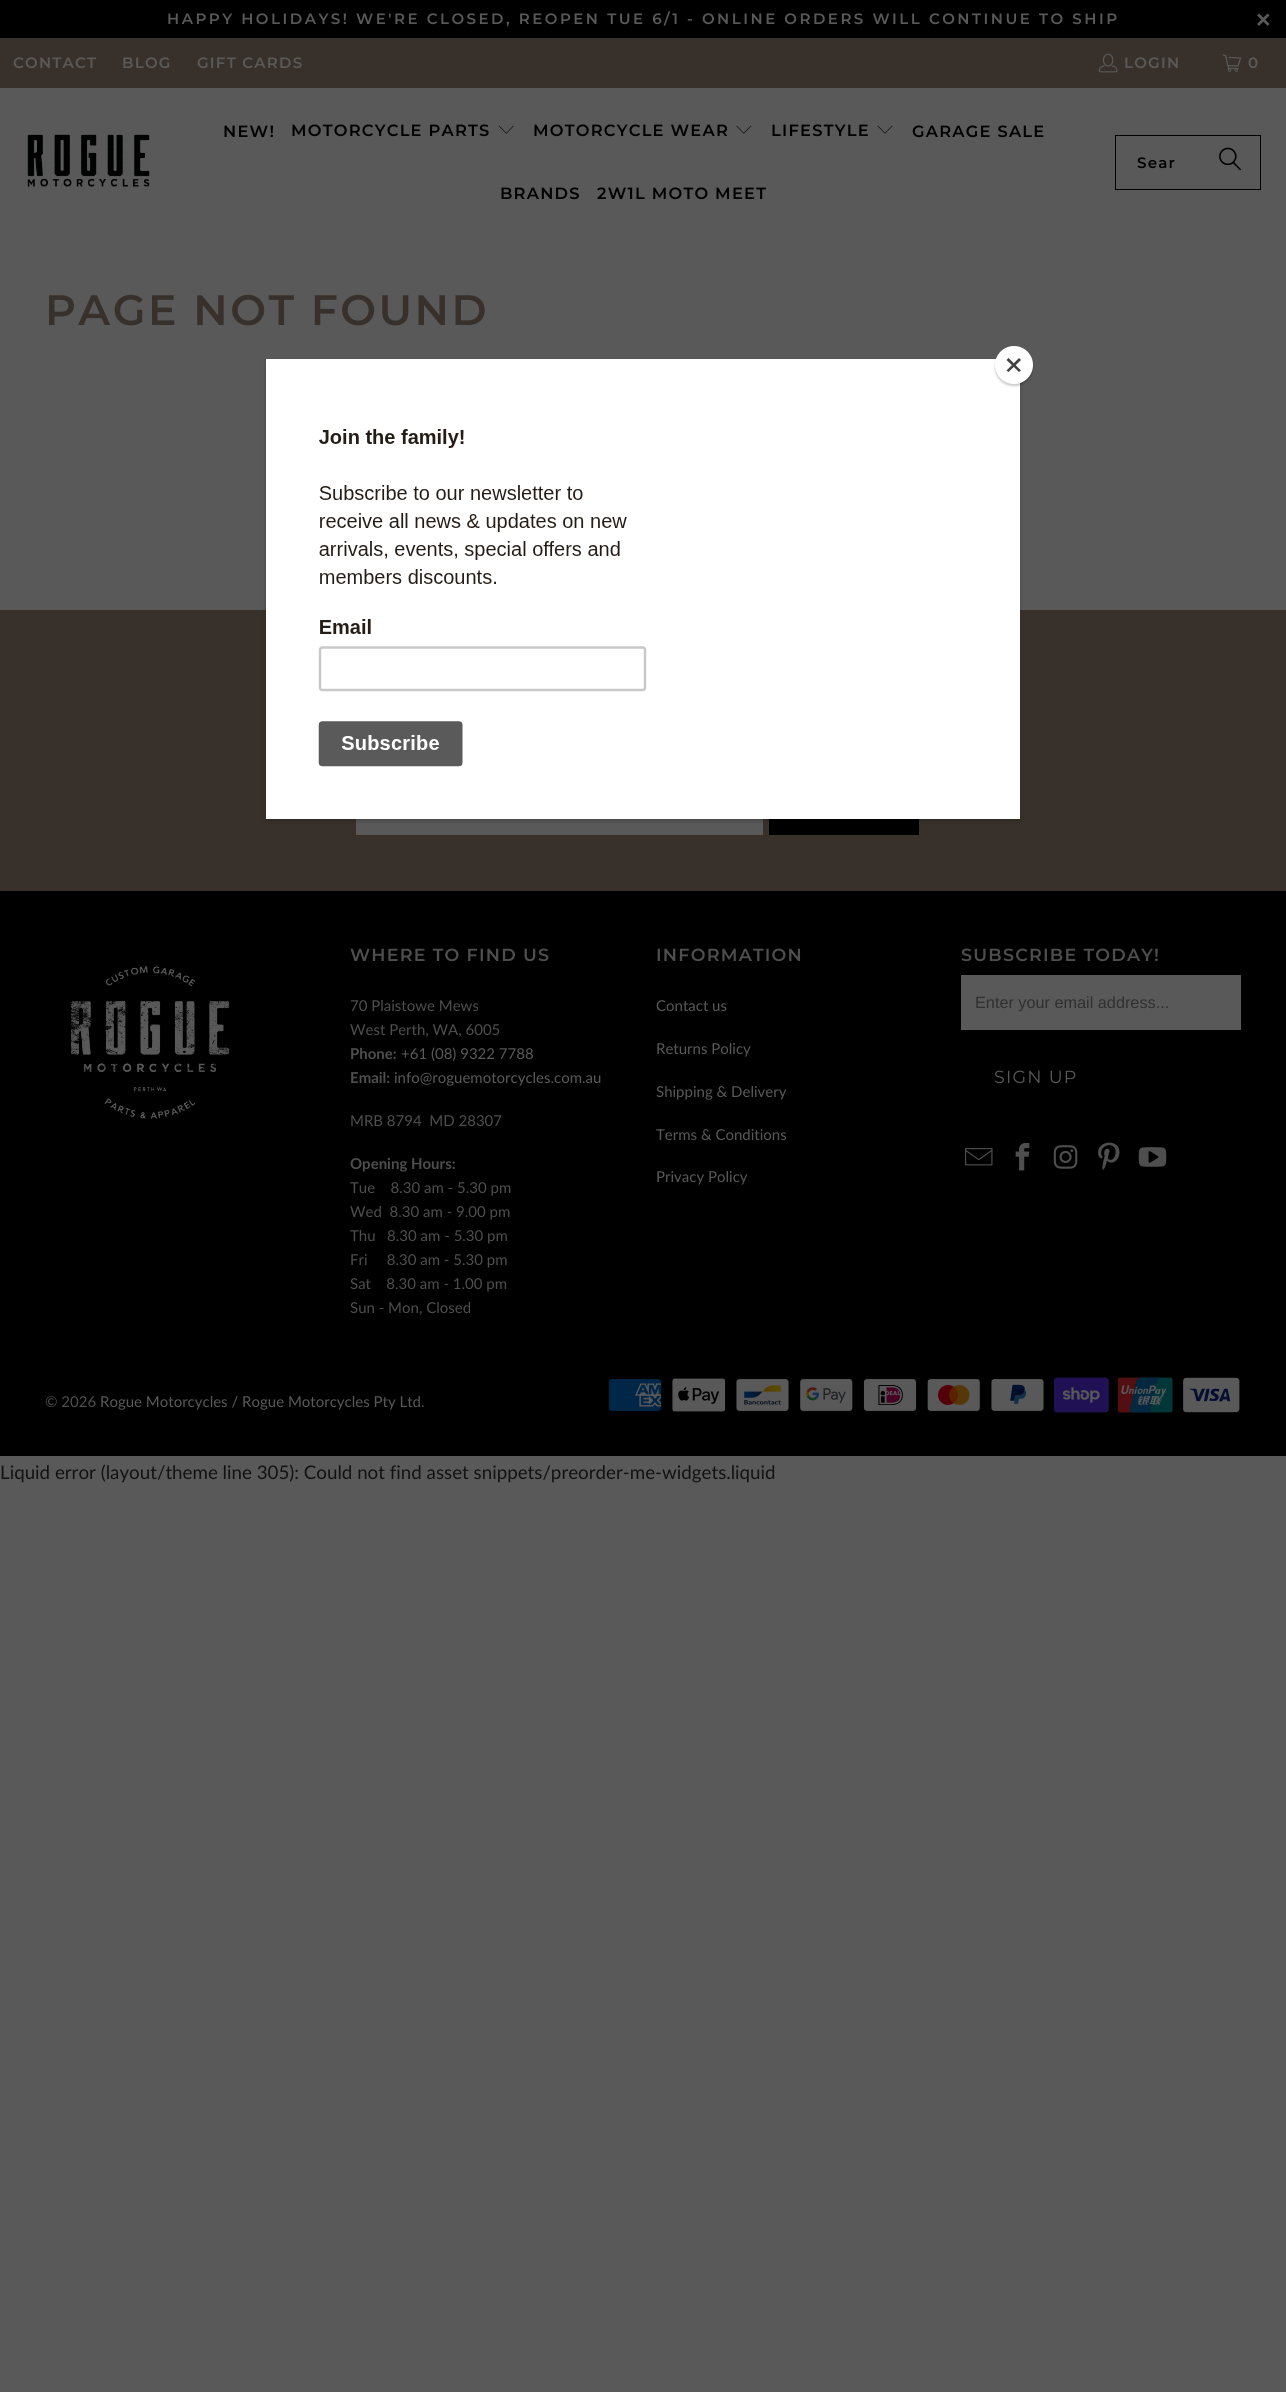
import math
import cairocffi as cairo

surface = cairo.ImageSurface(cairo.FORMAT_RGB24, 1286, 2392)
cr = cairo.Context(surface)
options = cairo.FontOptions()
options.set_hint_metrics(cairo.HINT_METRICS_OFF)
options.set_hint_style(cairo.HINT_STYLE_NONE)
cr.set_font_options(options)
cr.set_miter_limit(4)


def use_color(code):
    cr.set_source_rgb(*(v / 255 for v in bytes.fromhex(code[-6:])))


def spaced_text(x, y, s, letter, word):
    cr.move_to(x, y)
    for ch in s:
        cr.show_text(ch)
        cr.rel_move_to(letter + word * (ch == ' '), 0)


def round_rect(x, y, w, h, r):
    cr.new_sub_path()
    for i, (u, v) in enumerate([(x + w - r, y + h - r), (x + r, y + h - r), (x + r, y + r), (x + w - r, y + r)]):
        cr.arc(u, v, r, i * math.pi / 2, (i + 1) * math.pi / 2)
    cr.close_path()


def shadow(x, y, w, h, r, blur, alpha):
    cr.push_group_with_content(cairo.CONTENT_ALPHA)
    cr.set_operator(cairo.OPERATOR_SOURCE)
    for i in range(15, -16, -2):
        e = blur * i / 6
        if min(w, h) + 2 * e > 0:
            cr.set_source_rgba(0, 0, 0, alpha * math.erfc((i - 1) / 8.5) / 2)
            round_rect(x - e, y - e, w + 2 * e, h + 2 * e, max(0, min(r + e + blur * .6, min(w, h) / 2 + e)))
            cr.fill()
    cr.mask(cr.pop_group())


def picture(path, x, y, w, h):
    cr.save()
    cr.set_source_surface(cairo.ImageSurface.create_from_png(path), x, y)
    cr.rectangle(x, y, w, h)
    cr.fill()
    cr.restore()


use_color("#595959")
cr.paint()
use_color("#000000")
cr.rectangle(0, 0, 1286, 38)
cr.fill()
cr.select_font_face("Montserrat SemiBold")
cr.set_font_size(15)
use_color("#595959")
spaced_text(167, 24, "HAPPY HOLIDAYS! WE'RE CLOSED, REOPEN TUE 6/1 - ONLINE ORDERS WILL CONTINUE TO SHIP", 2.5, 0)
cr.select_font_face("Liberation Sans", cairo.FONT_SLANT_NORMAL, cairo.FONT_WEIGHT_BOLD)
cr.set_font_size(25)
spaced_text(1256, 28, "×", 2.5, 0)
use_color("#38312b")
cr.rectangle(0, 38, 1286, 50)
cr.fill()
cr.select_font_face("Montserrat SemiBold")
cr.set_font_size(15)
use_color("#595959")
spaced_text(13, 68, "CONTACT", 1.25, 0)
spaced_text(122, 68, "BLOG", 1.25, 0)
spaced_text(197, 68, "GIFT CARDS", 1.25, 0)
picture("img1.png", 1098, 53, 20, 20)
spaced_text(1124, 68, "LOGIN", 1.25, 0)
picture("img2.png", 1222, 54, 20, 18)
spaced_text(1248, 68, "0", 1.25, 0)
picture("img3.png", 27, 134, 123, 53)
cr.set_font_size(16.25)
use_color("#000000")
spaced_text(223, 137, "NEW!", 1.25, 0)
spaced_text(291, 136, "MOTORCYCLE PARTS", 1.25, 0)
picture("img4.png", 498, 125, 16, 9)
spaced_text(533, 136, "MOTORCYCLE WEAR", 1.25, 0)
picture("img5.png", 736, 125, 16, 9)
spaced_text(771, 136, "LIFESTYLE", 1.25, 0)
picture("img6.png", 877, 125, 16, 9)
spaced_text(912, 137, "GARAGE SALE", 1.25, 0)
spaced_text(500, 199, "BRANDS", 1.25, 0)
spaced_text(597, 199, "2W1L MOTO MEET", 1.25, 0)
cr.rectangle(1115.5, 135.5, 145, 54)
cr.set_line_width(1)
cr.stroke()
cr.set_font_size(15)
spaced_text(1137, 168, "Sear", 1.25, 0)
picture("img7.png", 1219, 147, 22, 24)
cr.set_font_size(42.5)
use_color("#38312b")
spaced_text(45, 325, "PAGE NOT FOUND", 2.5, 0)
cr.rectangle(0, 610, 1286, 281)
cr.fill()
use_color("#595959")
cr.rectangle(356, 819, 407, 16)
cr.fill()
use_color("#000000")
cr.rectangle(769, 819, 150, 16)
cr.fill()
use_color("#000000")
shadow(266, 361, 754, 460, 0, 2.5, 0.2)
picture("img8.png", 266, 359, 754, 460)
shadow(995, 349, 38, 37, 18.5, 1, 0.2)
use_color("#ffffff")
cr.arc(1014, 365, 19, 0, 2 * math.pi)
cr.fill()
use_color("#414141")
cr.new_path()
cr.move_to(1019, 358)
cr.line_to(1021, 360)
cr.line_to(1008.5, 372)
cr.line_to(1006.5, 370.5)
cr.close_path()
cr.fill()
cr.new_path()
cr.move_to(1006.5, 360)
cr.line_to(1008.5, 358)
cr.line_to(1021, 370.5)
cr.line_to(1019, 372)
cr.close_path()
cr.fill()
use_color("#000000")
cr.rectangle(0, 891, 1286, 565)
cr.fill()
picture("img9.png", 70, 966, 160, 153)
cr.set_font_size(17.5)
use_color("#4e4e4e")
spaced_text(350, 961, "WHERE TO FIND US", 1.25, 0)
cr.select_font_face("Lato")
cr.set_font_size(15)
cr.move_to(350, 1011)
cr.show_text("70 Plaistowe Mews")
cr.move_to(350, 1035)
cr.show_text("West Perth, WA, 6005")
cr.select_font_face("Lato", cairo.FONT_SLANT_NORMAL, cairo.FONT_WEIGHT_BOLD)
cr.move_to(350, 1059)
cr.show_text("Phone:")
cr.select_font_face("Lato")
use_color("#595959")
cr.move_to(401, 1059)
cr.show_text("+61 (08) 9322 7788")
cr.select_font_face("Lato", cairo.FONT_SLANT_NORMAL, cairo.FONT_WEIGHT_BOLD)
use_color("#4e4e4e")
cr.move_to(350, 1083)
cr.show_text("Email:")
cr.select_font_face("Lato")
use_color("#595959")
cr.move_to(394, 1083)
cr.show_text("info@roguemotorcycles.com.au")
use_color("#4e4e4e")
cr.move_to(350, 1126)
cr.show_text("MRB 8794  MD 28307")
cr.select_font_face("Lato", cairo.FONT_SLANT_NORMAL, cairo.FONT_WEIGHT_BOLD)
cr.move_to(350, 1169)
cr.show_text("Opening Hours:")
cr.select_font_face("Lato")
cr.move_to(350, 1193)
cr.show_text("Tue    8.30 am - 5.30 pm")
cr.move_to(350, 1217)
cr.show_text("Wed  8.30 am - 9.00 pm")
cr.move_to(350, 1241)
cr.show_text("Thu   8.30 am - 5.30 pm")
cr.move_to(350, 1265)
cr.show_text("Fri     8.30 am - 5.30 pm")
cr.move_to(350, 1289)
cr.show_text("Sat    8.30 am - 1.00 pm")
cr.move_to(350, 1313)
cr.show_text("Sun - Mon, Closed")
cr.select_font_face("Montserrat SemiBold")
cr.set_font_size(17.5)
spaced_text(656, 961, "INFORMATION", 1.25, 0)
cr.select_font_face("Lato")
cr.set_font_size(15)
use_color("#595959")
cr.move_to(656, 1011)
cr.show_text("Contact us")
cr.move_to(656, 1054)
cr.show_text("Returns Policy")
cr.move_to(656, 1097)
cr.show_text("Shipping & Delivery")
cr.move_to(656, 1140)
cr.show_text("Terms & Conditions")
cr.move_to(656, 1182)
cr.show_text("Privacy Policy")
cr.select_font_face("Montserrat SemiBold")
cr.set_font_size(17.5)
use_color("#4e4e4e")
spaced_text(961, 961, "SUBSCRIBE TODAY!", 1.25, 0)
use_color("#595959")
cr.rectangle(961, 975, 280, 55)
cr.fill()
cr.select_font_face("Liberation Sans")
cr.set_font_size(16.25)
use_color("#303030")
cr.move_to(975, 1008)
cr.show_text("Enter your email address...")
cr.select_font_face("Montserrat")
cr.set_font_size(17.5)
use_color("#595959")
spaced_text(994, 1083, "SIGN UP", 1.25, 0)
picture("img10.png", 965, 1148, 28, 18)
picture("img11.png", 1015, 1143, 15, 28)
picture("img12.png", 1053, 1145, 25, 24)
picture("img13.png", 1098, 1142, 22, 28)
picture("img14.png", 1138, 1147, 29, 20)
cr.select_font_face("Lato")
cr.set_font_size(15)
use_color("#4e4e4e")
cr.move_to(45, 1407)
cr.show_text("© 2026")
use_color("#595959")
cr.move_to(100, 1407)
cr.show_text("Rogue Motorcycles / Rogue Motorcycles Pty Ltd")
use_color("#4e4e4e")
cr.move_to(421, 1407)
cr.show_text(".")
picture("img15.png", 608, 1379, 54, 32)
picture("img16.png", 672, 1378, 54, 34)
picture("img17.png", 736, 1379, 53, 32)
picture("img18.png", 800, 1379, 53, 32)
picture("img19.png", 863, 1379, 54, 32)
picture("img20.png", 927, 1379, 53, 32)
picture("img21.png", 991, 1379, 53, 32)
picture("img22.png", 1054, 1377, 55, 36)
picture("img23.png", 1118, 1377, 55, 36)
picture("img24.png", 1183, 1377, 57, 36)
cr.set_font_size(18.75)
use_color("#121212")
cr.move_to(0, 1479)
cr.show_text("Liquid error (layout/theme line 305): Could not find asset snippets/preorder-me-widgets.liquid")
surface.write_to_png("result.png")
